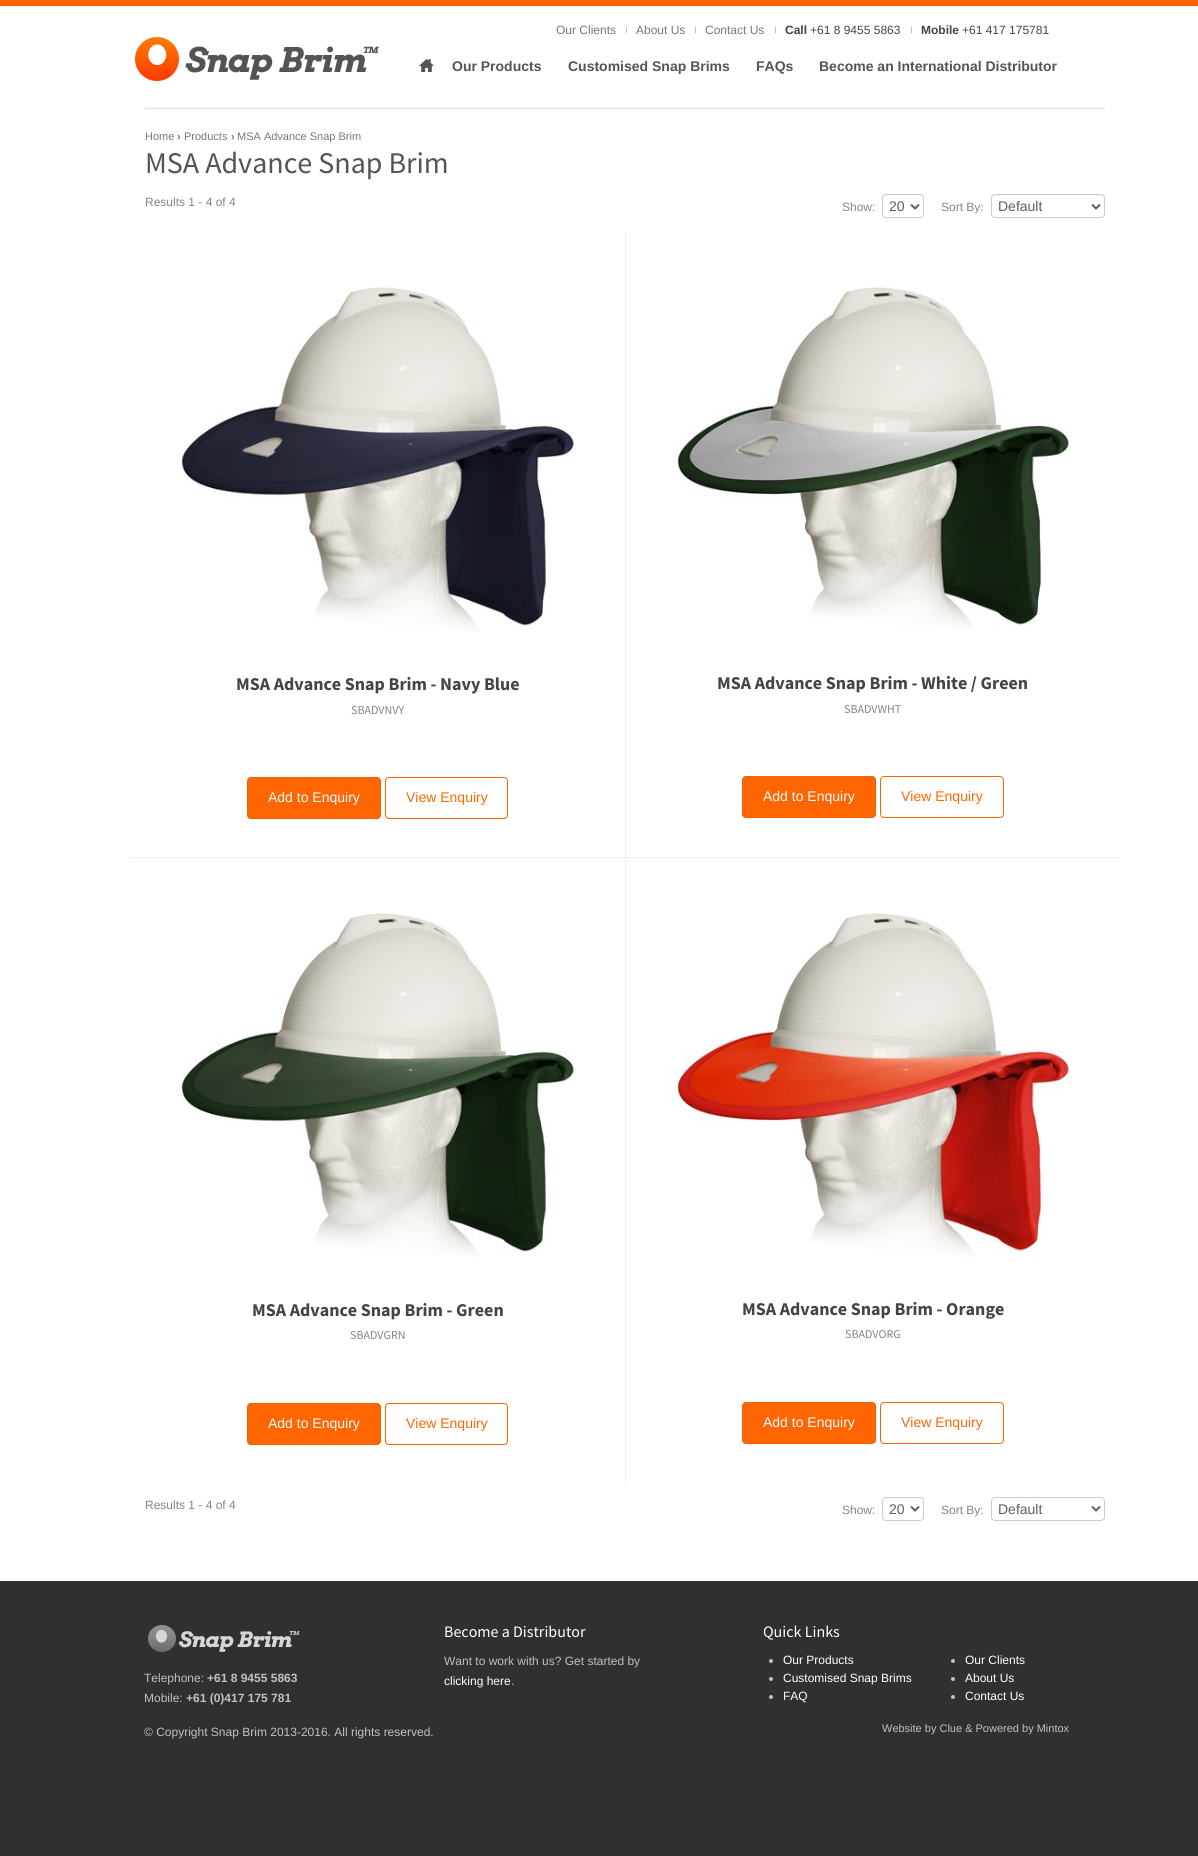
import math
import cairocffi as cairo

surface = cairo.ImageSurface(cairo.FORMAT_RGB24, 1198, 1856)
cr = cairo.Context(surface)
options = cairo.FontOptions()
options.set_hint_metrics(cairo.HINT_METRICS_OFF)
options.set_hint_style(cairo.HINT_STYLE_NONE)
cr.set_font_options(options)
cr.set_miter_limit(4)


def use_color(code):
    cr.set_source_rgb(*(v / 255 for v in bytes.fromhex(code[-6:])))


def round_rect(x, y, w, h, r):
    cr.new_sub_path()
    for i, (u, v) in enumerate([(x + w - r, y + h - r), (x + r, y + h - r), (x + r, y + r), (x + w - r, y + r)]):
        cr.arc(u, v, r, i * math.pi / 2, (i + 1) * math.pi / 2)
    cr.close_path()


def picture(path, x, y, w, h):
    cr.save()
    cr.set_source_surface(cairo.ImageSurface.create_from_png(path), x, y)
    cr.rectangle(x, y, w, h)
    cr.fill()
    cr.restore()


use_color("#303030")
cr.paint()
use_color("#ffffff")
cr.rectangle(0, 6, 1198, 1575)
cr.fill()
use_color("#ff6000")
cr.rectangle(0, 0, 1198, 6)
cr.fill()
cr.select_font_face("Liberation Sans")
cr.set_font_size(12)
use_color("#777777")
cr.move_to(556, 34)
cr.show_text("Our Clients")
picture("img1.png", 626, 27, 1, 6)
cr.move_to(636, 34)
cr.show_text("About Us")
picture("img1.png", 695, 27, 1, 6)
cr.move_to(705, 34)
cr.show_text("Contact Us")
picture("img1.png", 775, 27, 1, 6)
cr.select_font_face("Liberation Sans", cairo.FONT_SLANT_NORMAL, cairo.FONT_WEIGHT_BOLD)
use_color("#444444")
cr.move_to(785, 34)
cr.show_text("Call")
cr.select_font_face("Liberation Sans")
cr.move_to(810, 34)
cr.show_text("+61 8 9455 5863")
picture("img1.png", 911, 27, 1, 6)
cr.select_font_face("Liberation Sans", cairo.FONT_SLANT_NORMAL, cairo.FONT_WEIGHT_BOLD)
cr.move_to(921, 34)
cr.show_text("Mobile")
cr.select_font_face("Liberation Sans")
cr.move_to(962, 34)
cr.show_text("+61 417 175781")
picture("img2.png", 135, 37, 244, 45)
picture("img3.png", 419, 59, 15, 13)
cr.select_font_face("Liberation Sans", cairo.FONT_SLANT_NORMAL, cairo.FONT_WEIGHT_BOLD)
cr.set_font_size(14)
use_color("#545454")
cr.move_to(452, 71)
cr.show_text("Our Products")
cr.move_to(568, 71)
cr.show_text("Customised Snap Brims")
cr.move_to(756, 71)
cr.show_text("FAQs")
cr.move_to(819, 71)
cr.show_text("Become an International Distributor")
use_color("#dddddd")
cr.rectangle(145, 108, 960, 1)
cr.fill()
cr.select_font_face("Liberation Sans")
cr.set_font_size(11)
use_color("#777777")
cr.move_to(145, 140)
cr.show_text("Home")
cr.select_font_face("Liberation Sans", cairo.FONT_SLANT_NORMAL, cairo.FONT_WEIGHT_BOLD)
cr.move_to(177, 140)
cr.show_text("›")
cr.select_font_face("Liberation Sans")
cr.move_to(184, 140)
cr.show_text("Products")
cr.select_font_face("Liberation Sans", cairo.FONT_SLANT_NORMAL, cairo.FONT_WEIGHT_BOLD)
cr.move_to(231, 140)
cr.show_text("›")
cr.select_font_face("Liberation Sans")
cr.move_to(237, 140)
cr.show_text("MSA Advance Snap Brim")
cr.select_font_face("Source Sans Pro")
cr.set_font_size(30)
use_color("#545454")
cr.move_to(145, 173)
cr.show_text("MSA Advance Snap Brim")
cr.select_font_face("Liberation Sans")
cr.set_font_size(12)
use_color("#848484")
cr.move_to(145, 206)
cr.show_text("Results 1 - 4 of 4")
cr.move_to(842, 211)
cr.show_text("Show:")
round_rect(882.5, 194.5, 41, 23, 3.5)
use_color("#cccccc")
cr.set_line_width(1)
cr.stroke()
cr.new_path()
cr.move_to(911, 204.5)
cr.line_to(915, 208.5)
cr.line_to(919, 204.5)
use_color("#5e5e5e")
cr.set_line_width(2)
cr.stroke()
cr.set_font_size(14)
cr.move_to(889, 211)
cr.show_text("20")
cr.set_font_size(12)
use_color("#848484")
cr.move_to(941, 211)
cr.show_text("Sort By:")
round_rect(991.5, 194.5, 113, 23, 3.5)
use_color("#cccccc")
cr.set_line_width(1)
cr.stroke()
cr.new_path()
cr.move_to(1092, 204.5)
cr.line_to(1096, 208.5)
cr.line_to(1100, 204.5)
use_color("#5e5e5e")
cr.set_line_width(2)
cr.stroke()
cr.set_font_size(14)
cr.move_to(998, 211)
cr.show_text("Default")
picture("img4.png", 180, 285, 395, 348)
cr.select_font_face("Source Sans Pro", cairo.FONT_SLANT_NORMAL, cairo.FONT_WEIGHT_BOLD)
cr.set_font_size(18)
use_color("#444444")
cr.move_to(236, 690)
cr.show_text("MSA Advance Snap Brim - Navy Blue")
cr.select_font_face("Source Sans Pro")
cr.set_font_size(12)
use_color("#848484")
cr.move_to(351, 714)
cr.show_text("SBADVNVY")
use_color("#ff6500")
round_rect(247.5, 777.5, 133, 41, 3.5)
cr.fill_preserve()
use_color("#f56100")
cr.set_line_width(1)
cr.stroke()
cr.select_font_face("Liberation Sans")
cr.set_font_size(14)
use_color("#ffffff")
cr.move_to(268, 802)
cr.show_text("Add to Enquiry")
round_rect(385.5, 777.5, 122, 41, 3.5)
use_color("#ff6500")
cr.stroke()
cr.move_to(406, 802)
cr.show_text("View Enquiry")
use_color("#eeeeee")
cr.rectangle(625, 232, 1, 624)
cr.fill()
picture("img5.png", 676, 285, 394, 346)
cr.select_font_face("Source Sans Pro", cairo.FONT_SLANT_NORMAL, cairo.FONT_WEIGHT_BOLD)
cr.set_font_size(18)
use_color("#444444")
cr.move_to(717, 689)
cr.show_text("MSA Advance Snap Brim - White / Green")
cr.select_font_face("Source Sans Pro")
cr.set_font_size(12)
use_color("#848484")
cr.move_to(844, 713)
cr.show_text("SBADVWHT")
use_color("#ff6500")
round_rect(742.5, 776.5, 133, 41, 3.5)
cr.fill_preserve()
use_color("#f56100")
cr.stroke()
cr.select_font_face("Liberation Sans")
cr.set_font_size(14)
use_color("#ffffff")
cr.move_to(763, 801)
cr.show_text("Add to Enquiry")
round_rect(880.5, 776.5, 123, 41, 3.5)
use_color("#ff6500")
cr.stroke()
cr.move_to(901, 801)
cr.show_text("View Enquiry")
use_color("#eeeeee")
cr.rectangle(130, 857, 990, 1)
cr.fill()
picture("img6.png", 180, 911, 395, 346)
cr.select_font_face("Source Sans Pro", cairo.FONT_SLANT_NORMAL, cairo.FONT_WEIGHT_BOLD)
cr.set_font_size(18)
use_color("#444444")
cr.move_to(252, 1316)
cr.show_text("MSA Advance Snap Brim - Green")
cr.select_font_face("Source Sans Pro")
cr.set_font_size(12)
use_color("#848484")
cr.move_to(350, 1339)
cr.show_text("SBADVGRN")
use_color("#ff6500")
round_rect(247.5, 1403.5, 133, 41, 3.5)
cr.fill_preserve()
use_color("#f56100")
cr.stroke()
cr.select_font_face("Liberation Sans")
cr.set_font_size(14)
use_color("#ffffff")
cr.move_to(268, 1428)
cr.show_text("Add to Enquiry")
round_rect(385.5, 1403.5, 122, 41, 3.5)
use_color("#ff6500")
cr.stroke()
cr.move_to(406, 1428)
cr.show_text("View Enquiry")
use_color("#eeeeee")
cr.rectangle(625, 857, 1, 625)
cr.fill()
picture("img7.png", 668, 911, 403, 347)
cr.select_font_face("Source Sans Pro", cairo.FONT_SLANT_NORMAL, cairo.FONT_WEIGHT_BOLD)
cr.set_font_size(18)
use_color("#444444")
cr.move_to(742, 1315)
cr.show_text("MSA Advance Snap Brim - Orange")
cr.select_font_face("Source Sans Pro")
cr.set_font_size(12)
use_color("#848484")
cr.move_to(845, 1338)
cr.show_text("SBADVORG")
use_color("#ff6500")
round_rect(742.5, 1402.5, 133, 41, 3.5)
cr.fill_preserve()
use_color("#f56100")
cr.stroke()
cr.select_font_face("Liberation Sans")
cr.set_font_size(14)
use_color("#ffffff")
cr.move_to(763, 1427)
cr.show_text("Add to Enquiry")
round_rect(880.5, 1402.5, 123, 41, 3.5)
use_color("#ff6500")
cr.stroke()
cr.move_to(901, 1427)
cr.show_text("View Enquiry")
cr.set_font_size(12)
use_color("#848484")
cr.move_to(145, 1509)
cr.show_text("Results 1 - 4 of 4")
cr.move_to(842, 1514)
cr.show_text("Show:")
round_rect(882.5, 1497.5, 41, 23, 3.5)
use_color("#cccccc")
cr.stroke()
cr.new_path()
cr.move_to(911, 1506.5)
cr.line_to(915, 1510.5)
cr.line_to(919, 1506.5)
use_color("#5e5e5e")
cr.set_line_width(2)
cr.stroke()
cr.set_font_size(14)
cr.move_to(889, 1514)
cr.show_text("20")
cr.set_font_size(12)
use_color("#848484")
cr.move_to(941, 1514)
cr.show_text("Sort By:")
round_rect(991.5, 1497.5, 113, 23, 3.5)
use_color("#cccccc")
cr.set_line_width(1)
cr.stroke()
cr.new_path()
cr.move_to(1092, 1506.5)
cr.line_to(1096, 1510.5)
cr.line_to(1100, 1506.5)
use_color("#5e5e5e")
cr.set_line_width(2)
cr.stroke()
cr.set_font_size(14)
cr.move_to(998, 1514)
cr.show_text("Default")
picture("img8.png", 148, 1625, 152, 27)
cr.set_font_size(12)
use_color("#c1c1c1")
cr.move_to(144, 1682)
cr.show_text("Telephone:")
cr.select_font_face("Liberation Sans", cairo.FONT_SLANT_NORMAL, cairo.FONT_WEIGHT_BOLD)
cr.move_to(207, 1682)
cr.show_text("+61 8 9455 5863")
cr.select_font_face("Liberation Sans")
cr.move_to(144, 1702)
cr.show_text("Mobile:")
cr.select_font_face("Liberation Sans", cairo.FONT_SLANT_NORMAL, cairo.FONT_WEIGHT_BOLD)
cr.move_to(186, 1702)
cr.show_text("+61 (0)417 175 781")
cr.select_font_face("Source Sans Pro")
cr.set_font_size(16)
use_color("#ffffff")
cr.move_to(444, 1637)
cr.show_text("Become a Distributor")
cr.select_font_face("Liberation Sans")
cr.set_font_size(12)
use_color("#c1c1c1")
cr.move_to(444, 1665)
cr.show_text("Want to work with us? Get started by")
use_color("#ffffff")
cr.move_to(444, 1685)
cr.show_text("clicking here")
use_color("#c1c1c1")
cr.move_to(511, 1685)
cr.show_text(".")
cr.select_font_face("Source Sans Pro")
cr.set_font_size(16)
use_color("#ffffff")
cr.move_to(763, 1637)
cr.show_text("Quick Links")
use_color("#c1c1c1")
cr.new_path()
cr.arc(771, 1661, 2, 0, 2 * math.pi)
cr.fill()
cr.select_font_face("Liberation Sans")
cr.set_font_size(12)
use_color("#ffffff")
cr.move_to(783, 1664)
cr.show_text("Our Products")
use_color("#c1c1c1")
cr.new_path()
cr.arc(771, 1679, 2, 0, 2 * math.pi)
cr.fill()
use_color("#ffffff")
cr.move_to(783, 1682)
cr.show_text("Customised Snap Brims")
use_color("#c1c1c1")
cr.new_path()
cr.arc(771, 1697, 2, 0, 2 * math.pi)
cr.fill()
use_color("#ffffff")
cr.move_to(783, 1700)
cr.show_text("FAQ")
use_color("#c1c1c1")
cr.new_path()
cr.arc(953, 1661, 2, 0, 2 * math.pi)
cr.fill()
use_color("#ffffff")
cr.move_to(965, 1664)
cr.show_text("Our Clients")
use_color("#c1c1c1")
cr.new_path()
cr.arc(953, 1679, 2, 0, 2 * math.pi)
cr.fill()
use_color("#ffffff")
cr.move_to(965, 1682)
cr.show_text("About Us")
use_color("#c1c1c1")
cr.new_path()
cr.arc(953, 1697, 2, 0, 2 * math.pi)
cr.fill()
use_color("#ffffff")
cr.move_to(965, 1700)
cr.show_text("Contact Us")
use_color("#c1c1c1")
cr.move_to(144, 1736)
cr.show_text("© Copyright Snap Brim 2013-2016. All rights reserved.")
cr.set_font_size(11)
cr.move_to(882, 1732)
cr.show_text("Website by Clue & Powered by Mintox")
surface.write_to_png("result.png")
